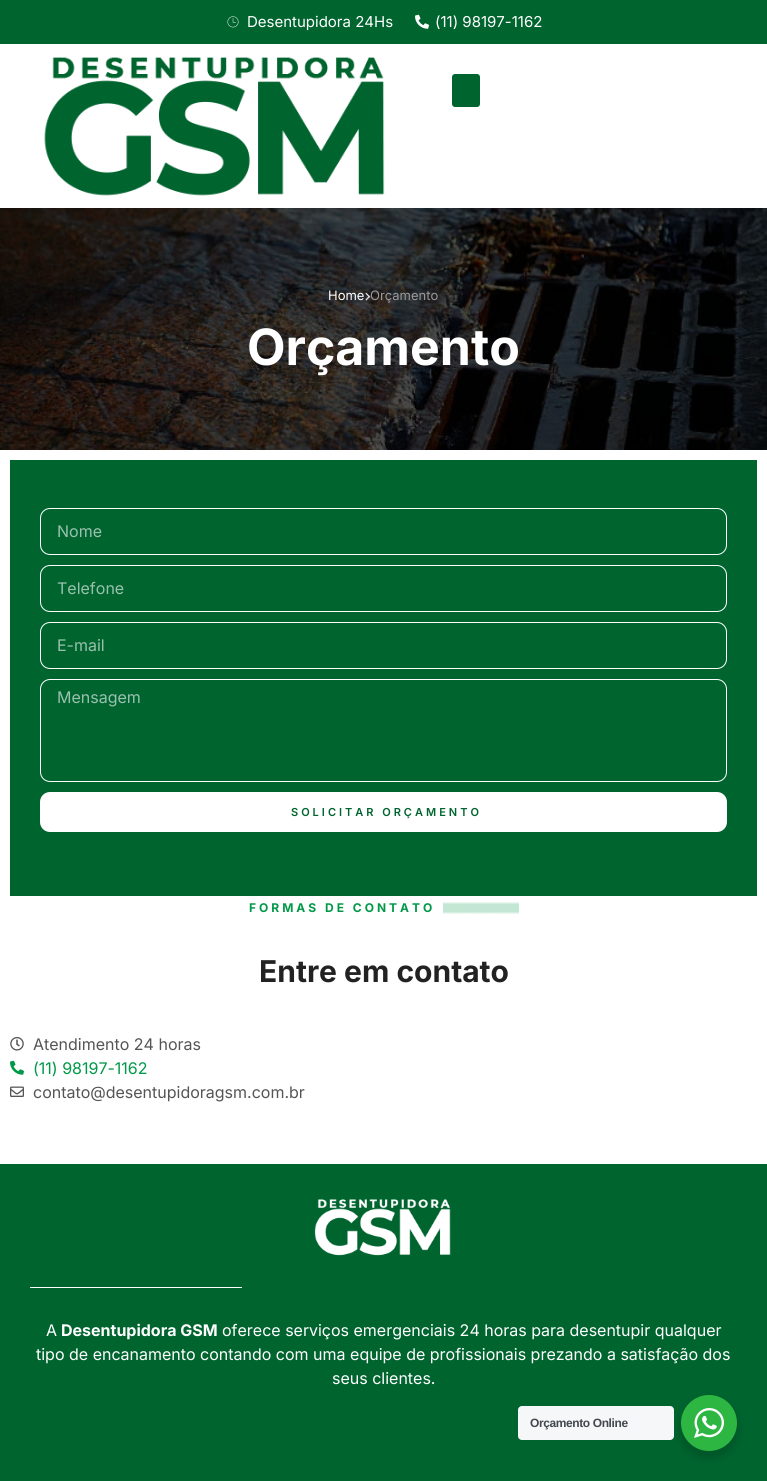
import math
import cairocffi as cairo

surface = cairo.ImageSurface(cairo.FORMAT_RGB24, 767, 1481)
cr = cairo.Context(surface)
options = cairo.FontOptions()
options.set_hint_metrics(cairo.HINT_METRICS_OFF)
options.set_hint_style(cairo.HINT_STYLE_NONE)
cr.set_font_options(options)
cr.set_miter_limit(4)


def use_color(code):
    cr.set_source_rgb(*(v / 255 for v in bytes.fromhex(code[-6:])))


def spaced_text(x, y, s, letter, word):
    cr.move_to(x, y)
    for ch in s:
        cr.show_text(ch)
        cr.rel_move_to(letter + word * (ch == ' '), 0)


def round_rect(x, y, w, h, r):
    cr.new_sub_path()
    for i, (u, v) in enumerate([(x + w - r, y + h - r), (x + r, y + h - r), (x + r, y + r), (x + w - r, y + r)]):
        cr.arc(u, v, r, i * math.pi / 2, (i + 1) * math.pi / 2)
    cr.close_path()


def shadow(x, y, w, h, r, blur, alpha):
    cr.push_group_with_content(cairo.CONTENT_ALPHA)
    cr.set_operator(cairo.OPERATOR_SOURCE)
    for i in range(15, -16, -2):
        e = blur * i / 6
        if min(w, h) + 2 * e > 0:
            cr.set_source_rgba(0, 0, 0, alpha * math.erfc((i - 1) / 8.5) / 2)
            round_rect(x - e, y - e, w + 2 * e, h + 2 * e, max(0, min(r + e + blur * .6, min(w, h) / 2 + e)))
            cr.fill()
    cr.mask(cr.pop_group())


def picture(path, x, y, w, h):
    cr.save()
    cr.set_source_surface(cairo.ImageSurface.create_from_png(path), x, y)
    cr.rectangle(x, y, w, h)
    cr.fill()
    cr.restore()


use_color("#ffffff")
cr.paint()
use_color("#00642f")
cr.rectangle(0, 0, 767, 44)
cr.fill()
picture("img1.png", 227, 16, 12, 12)
cr.select_font_face("Inter")
cr.set_font_size(15)
use_color("#ffffff")
cr.move_to(247, 27)
cr.show_text("Desentupidora 24Hs")
picture("img2.png", 415, 14, 14, 15)
cr.move_to(435, 27)
cr.show_text("(11) 98197-1162")
picture("img3.png", 44, 57, 341, 139)
use_color("#00642f")
round_rect(452, 74, 28, 33, 3)
cr.fill()
picture("img4.png", 0, 208, 767, 242)
cr.set_font_size(13)
use_color("#ffffff")
cr.move_to(328, 300)
cr.show_text("Home")
picture("img5.png", 365, 292, 6, 9)
use_color("#999999")
cr.move_to(370, 300)
cr.show_text("Orçamento")
cr.select_font_face("Inter", cairo.FONT_SLANT_NORMAL, cairo.FONT_WEIGHT_BOLD)
cr.set_font_size(50)
use_color("#ffffff")
cr.move_to(247, 365)
cr.show_text("Orçamento")
use_color("#00642f")
cr.rectangle(10, 460, 747, 436)
cr.fill()
round_rect(40.5, 508.5, 686, 46, 9.5)
use_color("#ffffff")
cr.set_line_width(1)
cr.stroke()
cr.select_font_face("Inter")
cr.set_font_size(16)
use_color("#99c1ac")
cr.move_to(57, 537)
cr.show_text("Nome")
round_rect(40.5, 565.5, 686, 46, 9.5)
use_color("#ffffff")
cr.stroke()
use_color("#99c1ac")
cr.move_to(57, 594)
cr.show_text("Telefone")
round_rect(40.5, 622.5, 686, 46, 9.5)
use_color("#ffffff")
cr.stroke()
use_color("#99c1ac")
cr.move_to(57, 651)
cr.show_text("E-mail")
round_rect(40.5, 679.5, 686, 102, 9.5)
use_color("#ffffff")
cr.stroke()
use_color("#99c1ac")
cr.move_to(57, 703)
cr.show_text("Mensagem")
use_color("#ffffff")
round_rect(40, 792, 687, 40, 10)
cr.fill()
cr.select_font_face("Inter SemiBold")
cr.set_font_size(11)
use_color("#00642f")
spaced_text(291, 816, "SOLICITAR ORÇAMENTO", 3, 0)
cr.select_font_face("Inter", cairo.FONT_SLANT_NORMAL, cairo.FONT_WEIGHT_BOLD)
cr.set_font_size(12)
use_color("#009948")
spaced_text(249, 912, "FORMAS DE CONTATO", 3, 0)
picture("img6.png", 443, 902, 76, 12)
cr.set_font_size(30)
use_color("#222222")
cr.move_to(259, 982)
cr.show_text("Entre em contato")
picture("img7.png", 10, 1037, 14, 14)
cr.select_font_face("Inter")
cr.set_font_size(16)
use_color("#555555")
cr.move_to(33, 1050)
cr.show_text("Atendimento 24 horas")
picture("img8.png", 10, 1060, 14, 15)
use_color("#009948")
cr.move_to(33, 1074)
cr.show_text("(11) 98197-1162")
picture("img9.png", 10, 1086, 14, 11)
use_color("#555555")
cr.move_to(33, 1098)
cr.show_text("contato@desentupidoragsm.com.br")
use_color("#00642f")
cr.rectangle(0, 1164, 767, 317)
cr.fill()
picture("img10.png", 314, 1199, 137, 57)
use_color("#ffffff")
cr.rectangle(30, 1287, 212, 1)
cr.fill()
cr.move_to(46, 1336)
cr.show_text("A")
cr.select_font_face("Inter", cairo.FONT_SLANT_NORMAL, cairo.FONT_WEIGHT_BOLD)
cr.move_to(61, 1336)
cr.show_text("Desentupidora GSM")
cr.select_font_face("Inter")
cr.move_to(222, 1336)
cr.show_text("oferece serviços emergenciais 24 horas para desentupir qualquer")
cr.move_to(36, 1360)
cr.show_text("tipo de encanamento contando com uma equipe de profissionais prezando a satisfação dos")
cr.move_to(332, 1384)
cr.show_text("seus clientes.")
use_color("#000000")
shadow(679, 1399, 60, 60, 30, 4, 0.14)
use_color("#f5f7f9")
round_rect(518, 1406, 156, 34, 4)
cr.fill()
cr.select_font_face("Liberation Sans", cairo.FONT_SLANT_NORMAL, cairo.FONT_WEIGHT_BOLD)
cr.set_font_size(12)
use_color("#43474e")
spaced_text(530, 1427, "Orçamento Online", -0.4, 0)
use_color("#2db742")
cr.new_path()
cr.arc(709, 1423, 28, 0, 2 * math.pi)
cr.fill()
picture("img11.png", 694, 1408, 30, 30)
surface.write_to_png("result.png")
